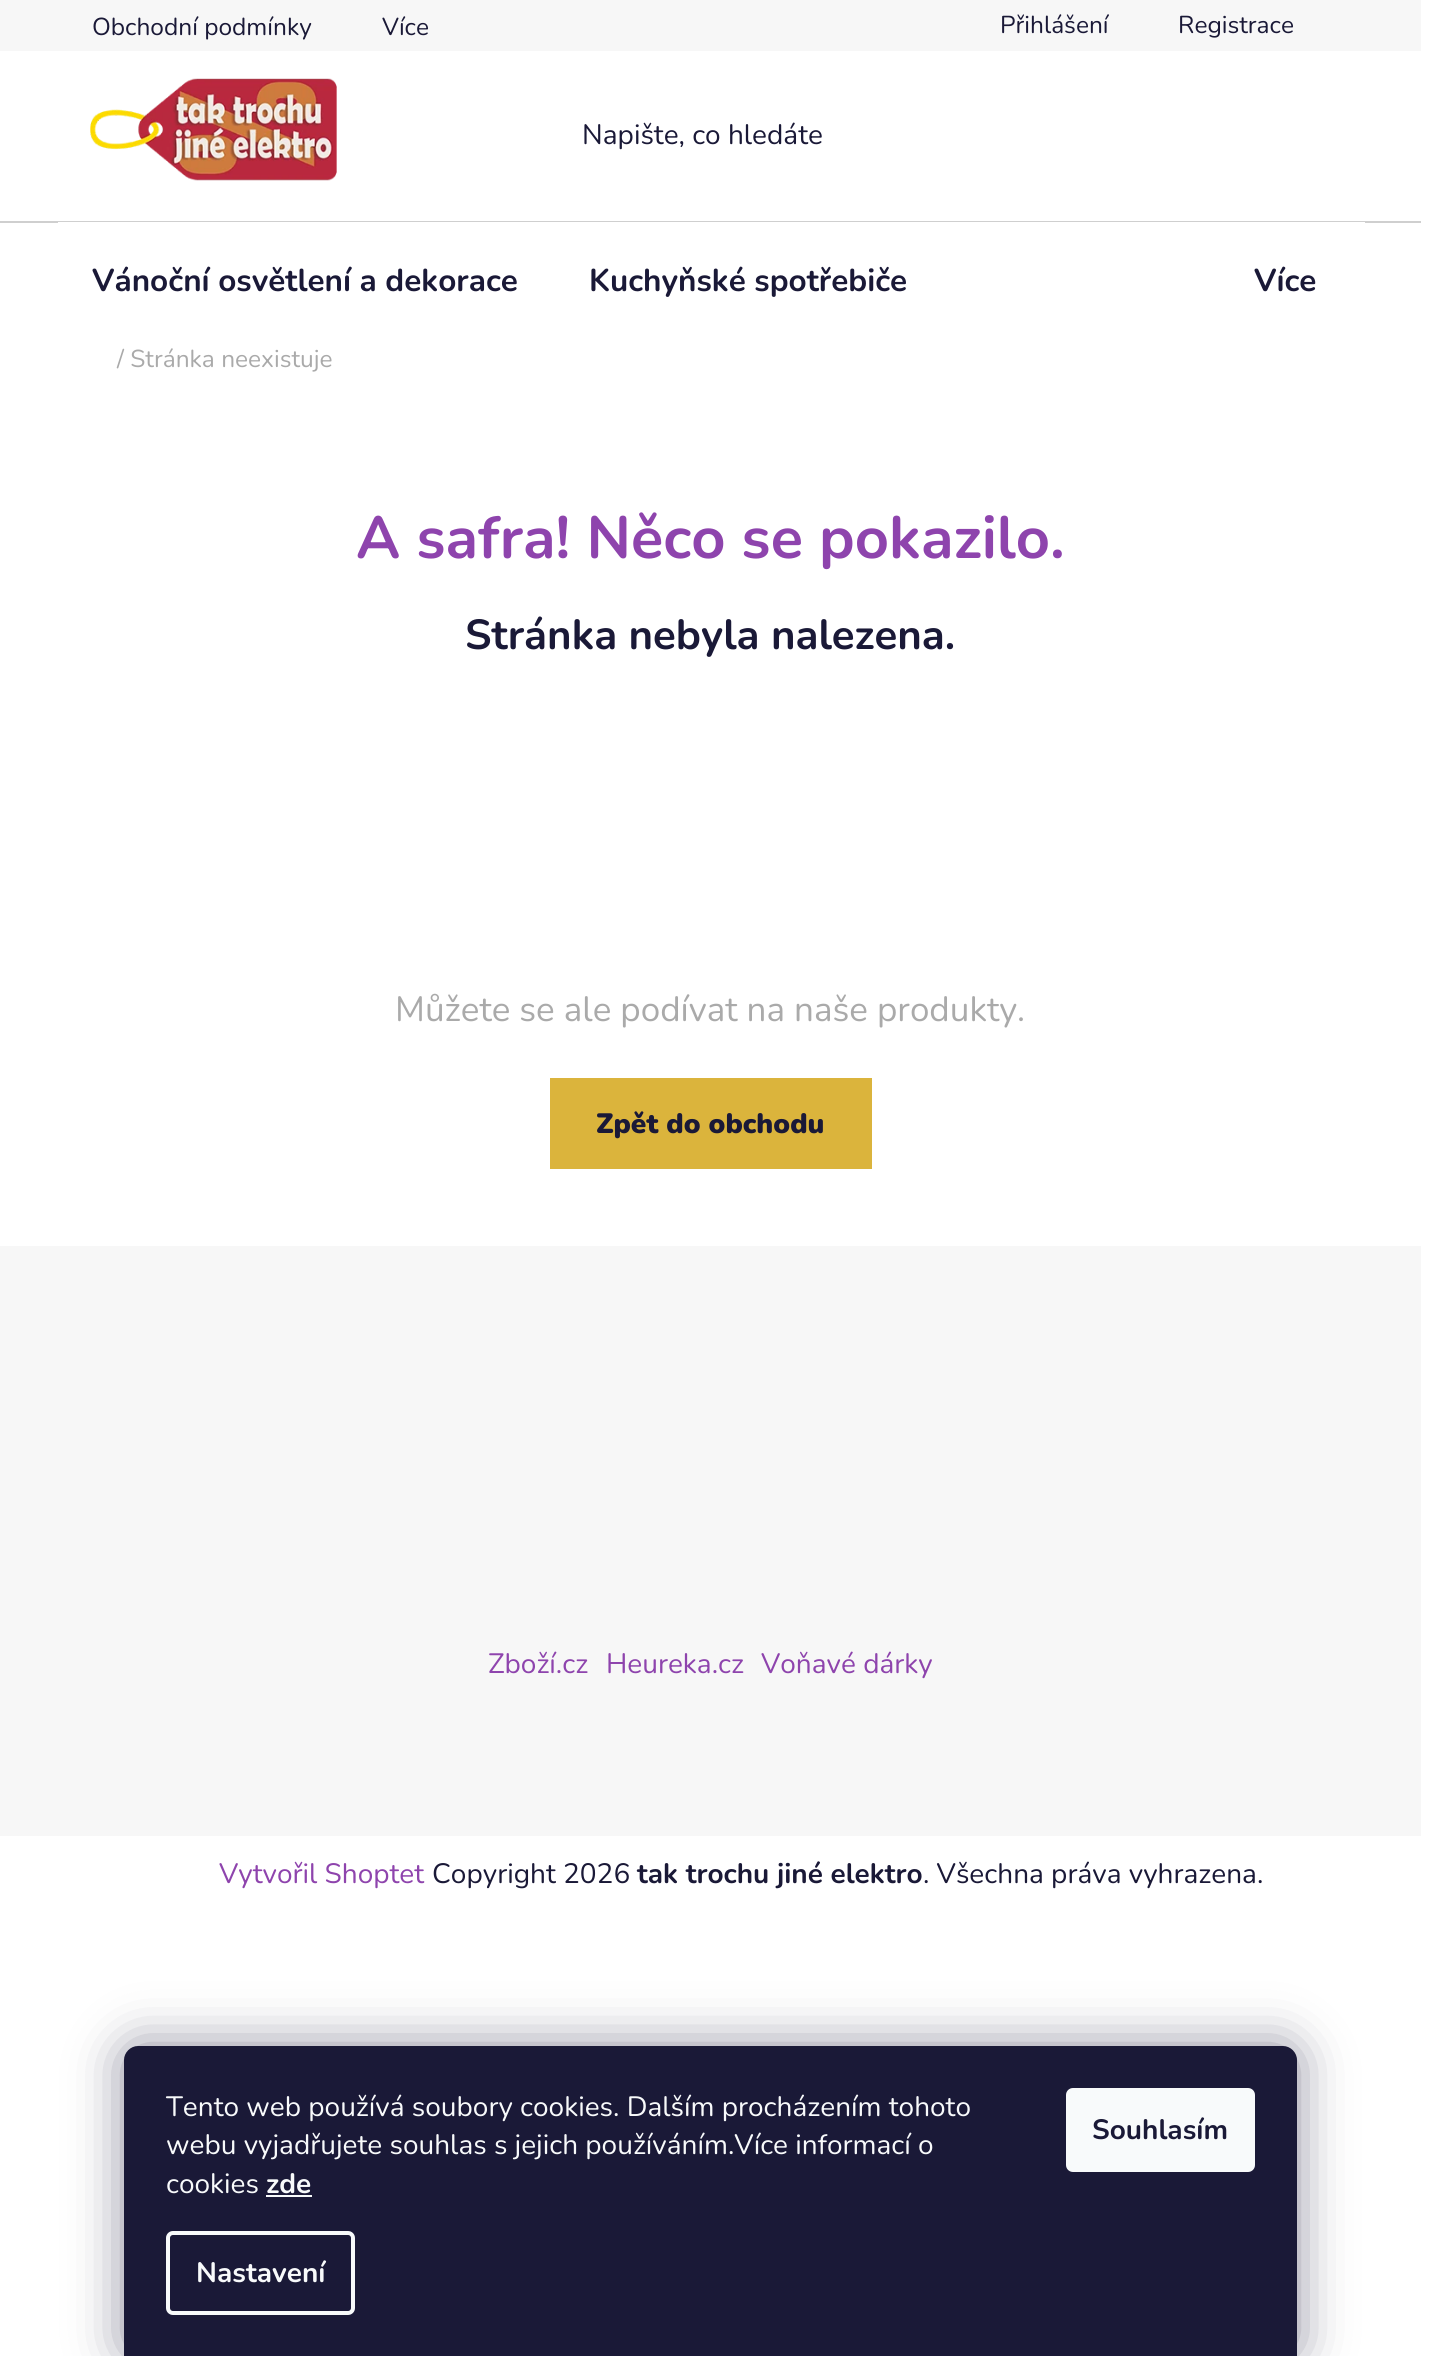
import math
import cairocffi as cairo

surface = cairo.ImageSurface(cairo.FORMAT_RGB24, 1446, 2356)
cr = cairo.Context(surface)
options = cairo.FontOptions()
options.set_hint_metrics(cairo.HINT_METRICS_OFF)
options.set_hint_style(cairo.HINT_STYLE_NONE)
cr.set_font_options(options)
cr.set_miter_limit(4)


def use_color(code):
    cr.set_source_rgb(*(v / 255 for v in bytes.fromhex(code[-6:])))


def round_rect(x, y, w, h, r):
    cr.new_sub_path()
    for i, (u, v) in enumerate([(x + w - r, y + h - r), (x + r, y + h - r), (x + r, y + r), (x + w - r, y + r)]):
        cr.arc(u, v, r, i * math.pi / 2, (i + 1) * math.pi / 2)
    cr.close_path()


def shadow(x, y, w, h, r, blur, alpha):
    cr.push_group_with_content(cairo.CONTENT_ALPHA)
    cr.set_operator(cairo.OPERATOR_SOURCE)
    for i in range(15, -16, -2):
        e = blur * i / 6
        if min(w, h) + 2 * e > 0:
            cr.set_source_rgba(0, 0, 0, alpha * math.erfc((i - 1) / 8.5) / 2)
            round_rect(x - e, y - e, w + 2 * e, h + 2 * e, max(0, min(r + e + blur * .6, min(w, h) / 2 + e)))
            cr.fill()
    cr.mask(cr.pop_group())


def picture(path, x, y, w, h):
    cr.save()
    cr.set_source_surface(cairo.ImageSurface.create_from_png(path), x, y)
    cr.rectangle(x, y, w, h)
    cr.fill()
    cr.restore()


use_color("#ffffff")
cr.paint()
use_color("#f7f7f7")
cr.rectangle(0, 0, 1421, 51)
cr.fill()
cr.select_font_face("Nunito")
cr.set_font_size(24.5)
use_color("#1a1937")
cr.move_to(92, 35)
cr.show_text("Obchodní podmínky")
cr.move_to(382, 35)
cr.show_text("Více")
cr.move_to(1000, 33)
cr.show_text("Přihlášení")
cr.move_to(1178, 33)
cr.show_text("Registrace")
picture("img1.png", 90, 78, 247, 103)
cr.set_font_size(28)
cr.move_to(582, 144)
cr.show_text("Napište, co hledáte")
use_color("#cfcfcf")
cr.rectangle(0, 221, 1421, 2)
cr.fill()
use_color("#ffffff")
cr.rectangle(58, 222, 1307, 1)
cr.fill()
cr.select_font_face("Nunito", cairo.FONT_SLANT_NORMAL, cairo.FONT_WEIGHT_BOLD)
cr.set_font_size(31.5)
use_color("#1a1937")
cr.move_to(92, 291)
cr.show_text("Vánoční osvětlení a dekorace")
cr.move_to(589, 291)
cr.show_text("Kuchyňské spotřebiče")
cr.move_to(1254, 291)
cr.show_text("Více")
cr.select_font_face("Nunito")
cr.set_font_size(24.5)
use_color("#aaaaaa")
cr.move_to(117, 367)
cr.show_text("/ Stránka neexistuje")
cr.select_font_face("Nunito", cairo.FONT_SLANT_NORMAL, cairo.FONT_WEIGHT_BOLD)
cr.set_font_size(59.5)
use_color("#8e44ad")
cr.move_to(356, 558)
cr.show_text("A safra! Něco se pokazilo.")
cr.set_font_size(42)
use_color("#1a1937")
cr.move_to(465, 649)
cr.show_text("Stránka nebyla nalezena.")
cr.select_font_face("Nunito")
cr.set_font_size(35)
use_color("#aaaaaa")
cr.move_to(395, 1021)
cr.show_text("Můžete se ale podívat na naše produkty.")
use_color("#dbb43c")
cr.rectangle(550, 1078, 322, 91)
cr.fill()
cr.select_font_face("Nunito Black")
cr.set_font_size(28)
use_color("#1a1937")
cr.move_to(596, 1133)
cr.show_text("Zpět do obchodu")
use_color("#f7f7f7")
cr.rectangle(0, 1246, 1421, 590)
cr.fill()
cr.select_font_face("Nunito")
use_color("#8e44ad")
cr.move_to(488, 1673)
cr.show_text("Zboží.cz")
cr.move_to(606, 1673)
cr.show_text("Heureka.cz")
cr.move_to(761, 1673)
cr.show_text("Voňavé dárky")
cr.move_to(219, 1883)
cr.show_text("Vytvořil Shoptet")
use_color("#1a1937")
cr.move_to(432, 1883)
cr.show_text("Copyright 2026")
cr.select_font_face("Nunito", cairo.FONT_SLANT_NORMAL, cairo.FONT_WEIGHT_BOLD)
cr.move_to(637, 1883)
cr.show_text("tak trochu jiné elektro")
cr.select_font_face("Nunito")
cr.move_to(923, 1883)
cr.show_text(". Všechna práva vyhrazena.")
use_color("#1b1939")
shadow(124, 2046, 1173, 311, 14, 26, 0.5)
use_color("#1a1937")
cr.new_path()
cr.move_to(138, 2046)
cr.line_to(1283, 2046)
cr.curve_to(1290.5, 2046, 1297, 2052.5, 1297, 2060)
cr.line_to(1297, 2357)
cr.line_to(124, 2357)
cr.line_to(124, 2060)
cr.curve_to(124, 2052.5, 130.5, 2046, 138, 2046)
cr.close_path()
cr.fill()
use_color("#f8fafb")
cr.move_to(166, 2116)
cr.show_text("Tento web používá soubory cookies. Dalším procházením tohoto")
cr.move_to(166, 2154)
cr.show_text("webu vyjadřujete souhlas s jejich používáním.Více informací o")
cr.move_to(166, 2193)
cr.show_text("cookies")
cr.select_font_face("Nunito", cairo.FONT_SLANT_NORMAL, cairo.FONT_WEIGHT_BOLD)
cr.move_to(266, 2193)
cr.show_text("zde")
cr.rectangle(266, 2195, 46, 2)
cr.fill()
round_rect(168, 2233, 185, 80, 5)
cr.set_line_width(4)
cr.stroke()
cr.move_to(196, 2282)
cr.show_text("Nastavení")
round_rect(1066, 2088, 189, 84, 7)
cr.fill()
use_color("#1a1937")
cr.move_to(1092, 2139)
cr.show_text("Souhlasím")
surface.write_to_png("result.png")
